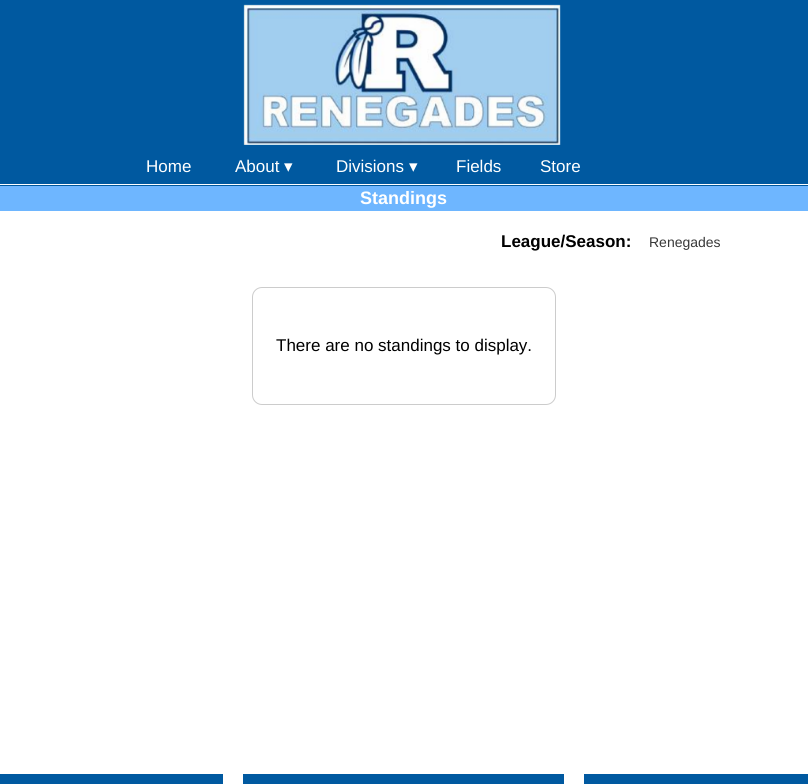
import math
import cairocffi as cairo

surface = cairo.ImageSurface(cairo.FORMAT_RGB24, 808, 784)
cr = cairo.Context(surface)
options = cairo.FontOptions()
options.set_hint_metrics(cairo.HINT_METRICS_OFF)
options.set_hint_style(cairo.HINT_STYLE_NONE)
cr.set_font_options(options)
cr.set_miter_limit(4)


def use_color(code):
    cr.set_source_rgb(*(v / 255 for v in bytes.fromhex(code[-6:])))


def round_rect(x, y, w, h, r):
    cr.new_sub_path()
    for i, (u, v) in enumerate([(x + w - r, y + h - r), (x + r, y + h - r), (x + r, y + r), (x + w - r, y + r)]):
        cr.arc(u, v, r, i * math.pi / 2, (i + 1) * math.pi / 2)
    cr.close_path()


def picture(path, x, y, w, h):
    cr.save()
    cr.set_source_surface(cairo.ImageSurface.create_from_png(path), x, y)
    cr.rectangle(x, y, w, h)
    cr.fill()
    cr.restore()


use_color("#ffffff")
cr.paint()
use_color("#0059a0")
cr.rectangle(0, 0, 808, 184)
cr.fill()
picture("img1.png", 243, 4, 318, 141)
cr.select_font_face("Liberation Sans")
cr.set_font_size(17)
use_color("#ffffff")
cr.move_to(146, 172)
cr.show_text("Home")
cr.move_to(235, 172)
cr.show_text("About")
cr.select_font_face("DejaVu Sans")
cr.move_to(284, 172)
cr.show_text("▾")
cr.select_font_face("Liberation Sans")
cr.move_to(336, 172)
cr.show_text("Divisions")
cr.select_font_face("DejaVu Sans")
cr.move_to(409, 172)
cr.show_text("▾")
cr.select_font_face("Liberation Sans")
cr.move_to(456, 172)
cr.show_text("Fields")
cr.move_to(540, 172)
cr.show_text("Store")
use_color("#0059a0")
cr.rectangle(0, 185, 808, 1)
cr.fill()
use_color("#6eb6ff")
cr.rectangle(0, 186, 808, 25)
cr.fill()
cr.select_font_face("Liberation Sans", cairo.FONT_SLANT_NORMAL, cairo.FONT_WEIGHT_BOLD)
cr.set_font_size(18)
use_color("#ffffff")
cr.move_to(360, 204)
cr.show_text("Standings")
cr.set_font_size(17)
use_color("#000000")
cr.move_to(501, 247)
cr.show_text("League/Season:")
cr.select_font_face("Liberation Sans")
cr.set_font_size(14)
use_color("#383838")
cr.move_to(649, 247)
cr.show_text("Renegades")
round_rect(252.5, 287.5, 303, 117, 9.5)
use_color("#cccccc")
cr.set_line_width(1)
cr.stroke()
cr.set_font_size(17)
use_color("#000000")
cr.move_to(276, 351)
cr.show_text("There are no standings to display.")
use_color("#0059a0")
cr.rectangle(0, 774, 223, 10)
cr.fill()
cr.rectangle(243, 774, 321, 10)
cr.fill()
cr.rectangle(584, 774, 224, 10)
cr.fill()
surface.write_to_png("result.png")
